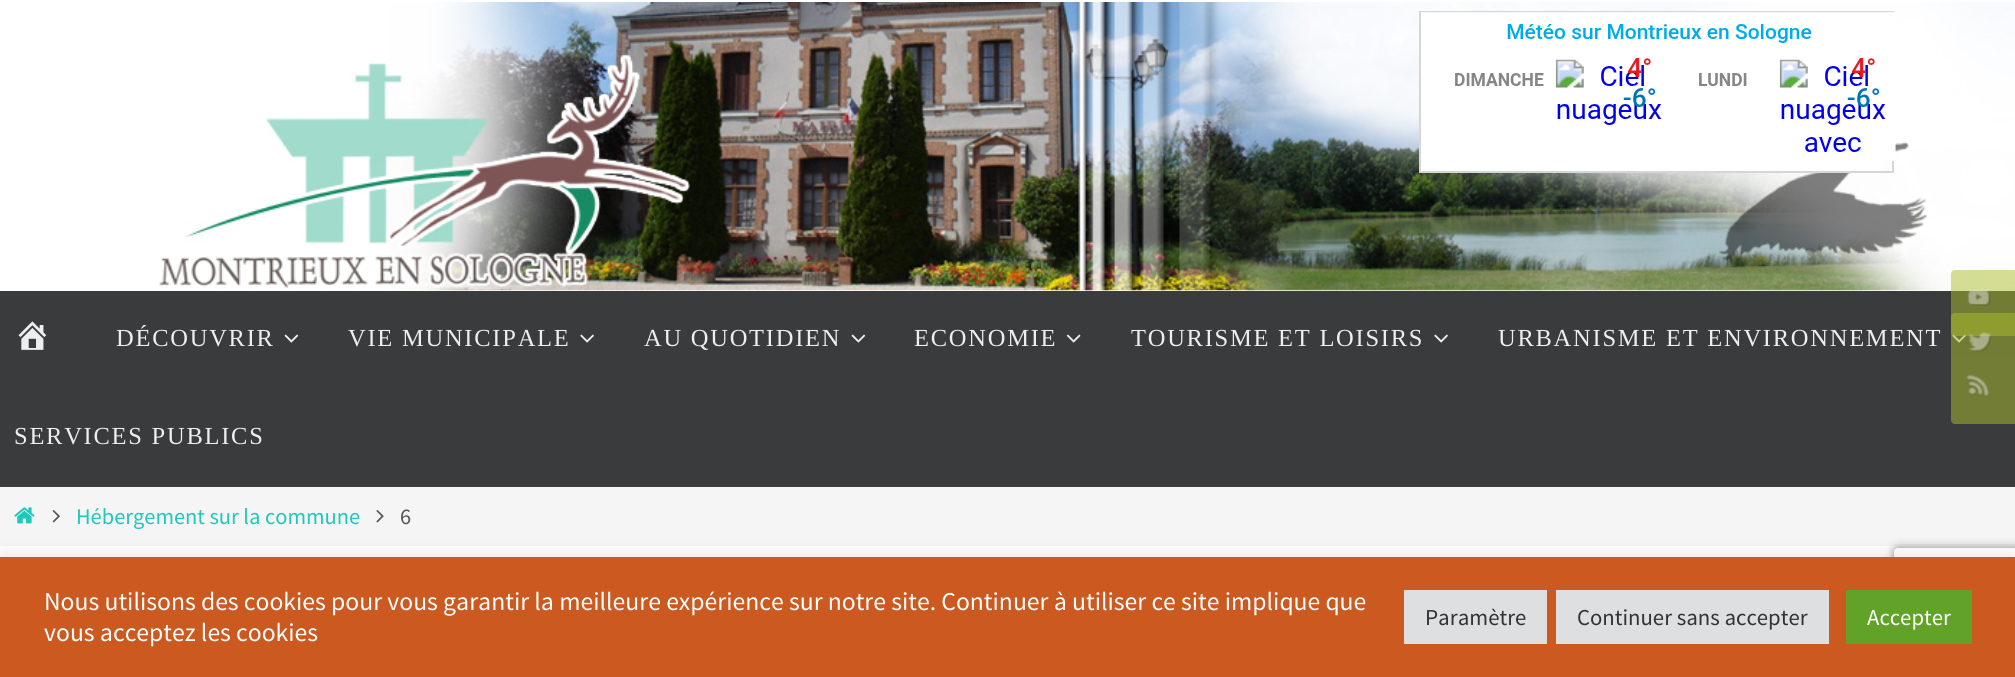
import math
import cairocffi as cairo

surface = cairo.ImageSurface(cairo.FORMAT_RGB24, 2015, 677)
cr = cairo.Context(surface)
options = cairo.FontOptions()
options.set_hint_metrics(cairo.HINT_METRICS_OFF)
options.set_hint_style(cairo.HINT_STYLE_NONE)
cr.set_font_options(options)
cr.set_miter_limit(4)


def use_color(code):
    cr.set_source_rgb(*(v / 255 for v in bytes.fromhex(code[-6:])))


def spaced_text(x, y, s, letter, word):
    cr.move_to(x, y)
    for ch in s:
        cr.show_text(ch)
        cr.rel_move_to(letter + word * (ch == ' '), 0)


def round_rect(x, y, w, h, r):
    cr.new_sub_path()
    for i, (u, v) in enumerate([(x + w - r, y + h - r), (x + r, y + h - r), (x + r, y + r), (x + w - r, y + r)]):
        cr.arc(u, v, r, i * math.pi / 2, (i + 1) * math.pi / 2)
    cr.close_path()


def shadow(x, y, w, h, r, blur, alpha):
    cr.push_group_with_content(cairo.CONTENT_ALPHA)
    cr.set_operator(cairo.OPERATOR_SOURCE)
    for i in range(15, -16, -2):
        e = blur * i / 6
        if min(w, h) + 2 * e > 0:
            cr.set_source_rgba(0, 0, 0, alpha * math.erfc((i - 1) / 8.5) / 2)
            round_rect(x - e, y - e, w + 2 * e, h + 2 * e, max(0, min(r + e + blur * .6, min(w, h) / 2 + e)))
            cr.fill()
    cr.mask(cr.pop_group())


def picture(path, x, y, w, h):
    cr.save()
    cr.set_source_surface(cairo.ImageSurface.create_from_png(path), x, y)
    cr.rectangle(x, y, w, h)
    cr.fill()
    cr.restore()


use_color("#ffffff")
cr.paint()
picture("img1.png", 159, 2, 1856, 289)
use_color("#ffffff")
cr.rectangle(1421, 161, 463, 10)
cr.fill()
cr.rectangle(1420, 12, 473, 160)
use_color("#d6d6d6")
cr.stroke()
picture("img2.png", 1421, 12, 475, 149)
use_color("#3a3b3d")
cr.rectangle(0, 291, 2015, 196)
cr.fill()
picture("img3.png", 18, 321, 29, 29)
cr.select_font_face("Liberation Serif")
cr.set_font_size(24.5)
use_color("#eeeeee")
spaced_text(116, 346, "DÉCOUVRIR", 1.75, 0)
picture("img4.png", 284, 334, 15, 9)
spaced_text(348, 346, "VIE MUNICIPALE", 1.75, 0)
picture("img5.png", 580, 334, 14, 9)
spaced_text(644, 346, "AU QUOTIDIEN", 1.75, 0)
picture("img4.png", 851, 334, 15, 9)
spaced_text(914, 346, "ECONOMIE", 1.75, 0)
picture("img6.png", 1066, 334, 15, 9)
spaced_text(1131, 346, "TOURISME ET LOISIRS", 1.75, 0)
picture("img5.png", 1434, 334, 14, 9)
spaced_text(1498, 346, "URBANISME ET ENVIRONNEMENT", 1.75, 0)
picture("img5.png", 1952, 334, 14, 9)
spaced_text(14, 444, "SERVICES PUBLICS", 1.75, 0)
cr.set_source_rgba(0.678, 0.749, 0.176, 0.5)
round_rect(1951, 270, 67, 66, 4)
cr.fill()
picture("img7.png", 1967, 290, 24, 16)
round_rect(1951, 313, 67, 67, 4)
cr.fill()
picture("img8.png", 1968, 332, 24, 20)
use_color("#747d35")
round_rect(1951, 357, 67, 67, 4)
cr.fill()
picture("img9.png", 1966, 374, 23, 23)
use_color("#f5f5f5")
cr.rectangle(0, 487, 2015, 59)
cr.fill()
picture("img10.png", 14, 507, 21, 17)
picture("img11.png", 52, 510, 8, 13)
cr.select_font_face("Source Sans Pro")
cr.set_font_size(22.4)
use_color("#1ec8bb")
cr.move_to(76, 524)
cr.show_text("Hébergement sur la commune")
picture("img12.png", 376, 510, 8, 13)
use_color("#555555")
cr.move_to(400, 524)
cr.show_text("6")
cr.save()
cr.set_fill_rule(cairo.FILL_RULE_EVEN_ODD)
cr.new_path()
cr.move_to(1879, 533)
cr.line_to(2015, 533)
cr.line_to(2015, 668)
cr.line_to(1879, 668)
cr.close_path()
cr.move_to(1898, 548)
cr.line_to(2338, 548)
cr.curve_to(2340, 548, 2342, 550, 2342, 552)
cr.line_to(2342, 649)
cr.curve_to(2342, 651, 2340, 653, 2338, 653)
cr.line_to(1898, 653)
cr.curve_to(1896, 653, 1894, 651, 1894, 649)
cr.line_to(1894, 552)
cr.curve_to(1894, 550, 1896, 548, 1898, 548)
cr.close_path()
cr.clip()
use_color("#808080")
shadow(1894, 548, 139, 105, 4, 4.5, 1)
cr.restore()
use_color("#acabab")
shadow(0, 555, 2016, 121, 0, 9, 0.3)
use_color("#cb5920")
cr.rectangle(0, 557, 2015, 120)
cr.fill()
cr.set_font_size(25.67)
use_color("#ffffff")
cr.move_to(44, 610)
cr.show_text("Nous utilisons des cookies pour vous garantir la meilleure expérience sur notre site. Continuer à utiliser ce site implique que")
cr.move_to(44, 641)
cr.show_text("vous acceptez les cookies")
use_color("#dedfe0")
cr.rectangle(1404, 590, 143, 54)
cr.fill()
cr.set_font_size(22.75)
use_color("#333333")
cr.move_to(1425, 625)
cr.show_text("Paramètre")
use_color("#dedfe0")
cr.rectangle(1556, 590, 273, 54)
cr.fill()
use_color("#333333")
cr.move_to(1577, 625)
cr.show_text("Continuer sans accepter")
use_color("#61a229")
cr.rectangle(1846, 590, 126, 54)
cr.fill()
use_color("#ffffff")
cr.move_to(1867, 625)
cr.show_text("Accepter")
surface.write_to_png("result.png")
